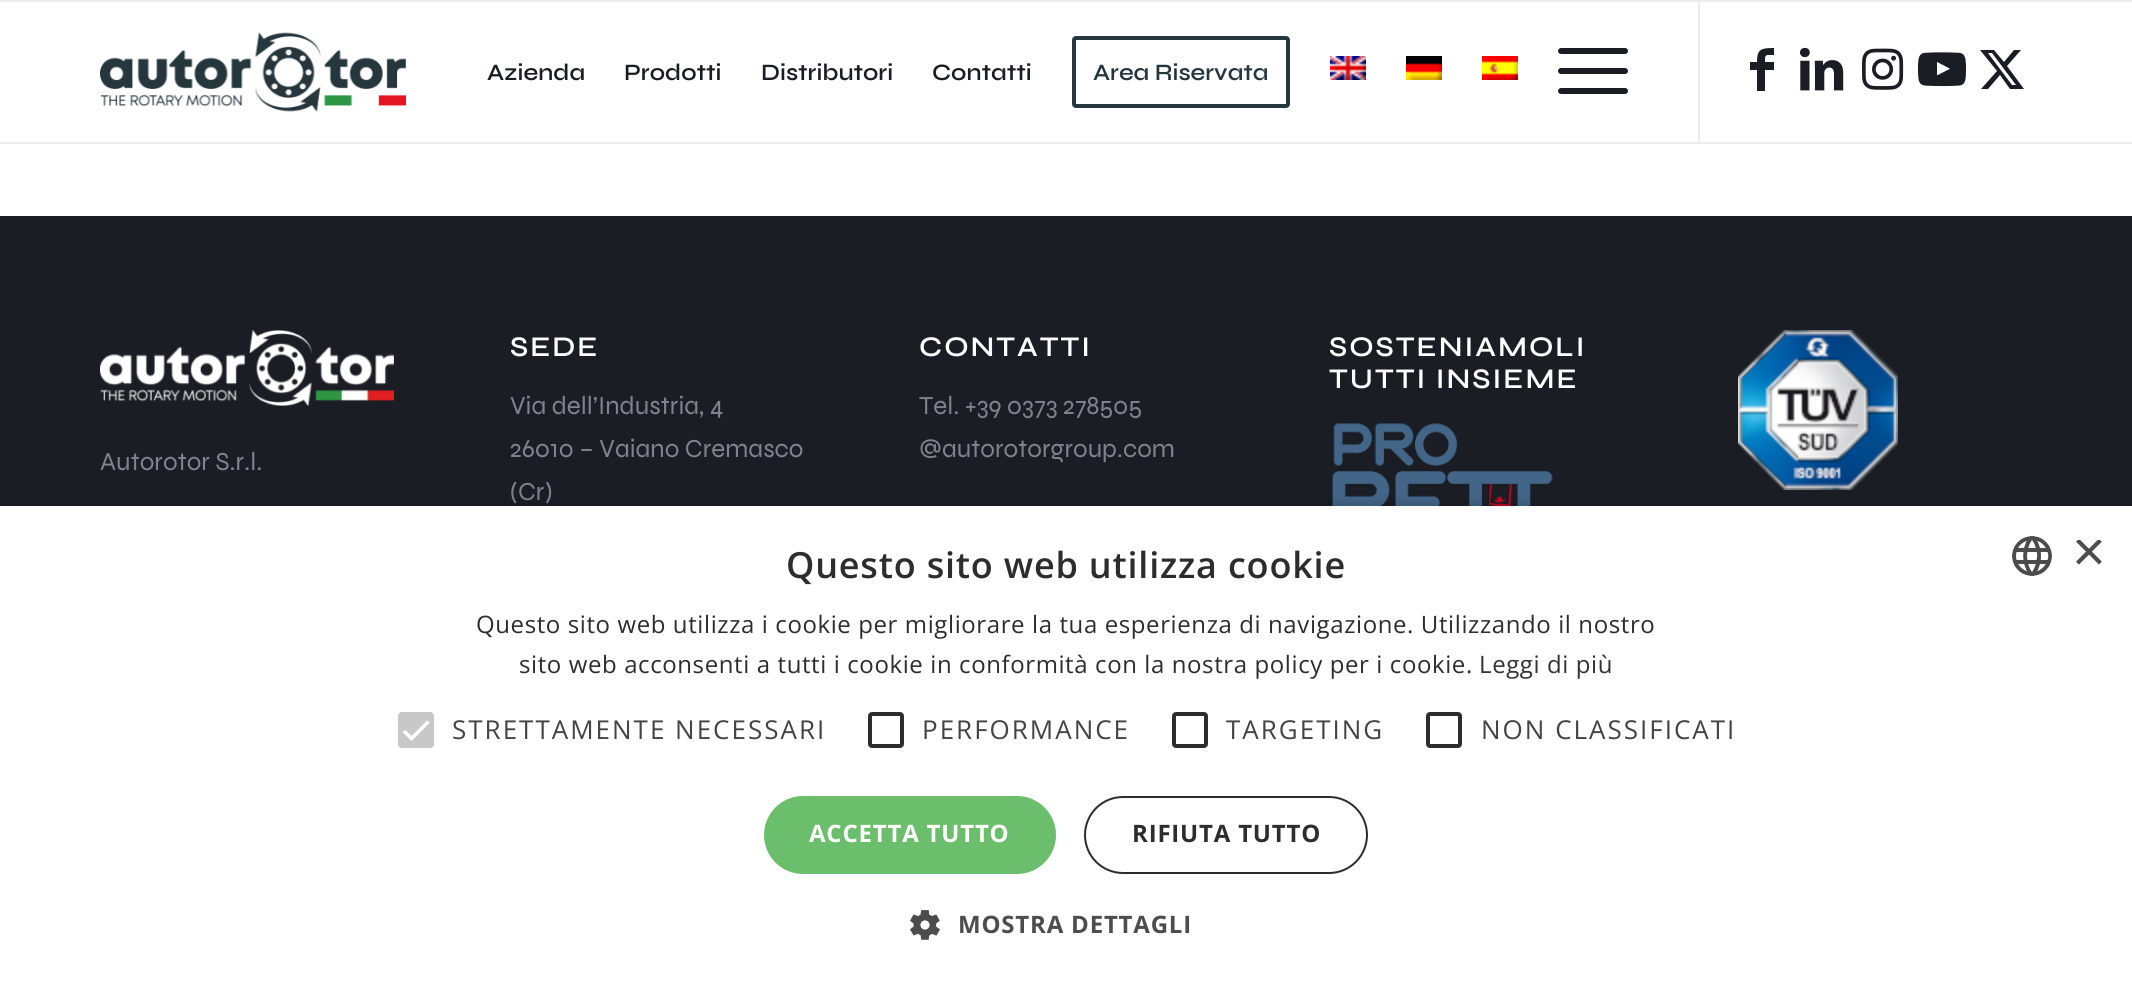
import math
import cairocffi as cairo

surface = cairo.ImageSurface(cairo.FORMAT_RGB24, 2132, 993)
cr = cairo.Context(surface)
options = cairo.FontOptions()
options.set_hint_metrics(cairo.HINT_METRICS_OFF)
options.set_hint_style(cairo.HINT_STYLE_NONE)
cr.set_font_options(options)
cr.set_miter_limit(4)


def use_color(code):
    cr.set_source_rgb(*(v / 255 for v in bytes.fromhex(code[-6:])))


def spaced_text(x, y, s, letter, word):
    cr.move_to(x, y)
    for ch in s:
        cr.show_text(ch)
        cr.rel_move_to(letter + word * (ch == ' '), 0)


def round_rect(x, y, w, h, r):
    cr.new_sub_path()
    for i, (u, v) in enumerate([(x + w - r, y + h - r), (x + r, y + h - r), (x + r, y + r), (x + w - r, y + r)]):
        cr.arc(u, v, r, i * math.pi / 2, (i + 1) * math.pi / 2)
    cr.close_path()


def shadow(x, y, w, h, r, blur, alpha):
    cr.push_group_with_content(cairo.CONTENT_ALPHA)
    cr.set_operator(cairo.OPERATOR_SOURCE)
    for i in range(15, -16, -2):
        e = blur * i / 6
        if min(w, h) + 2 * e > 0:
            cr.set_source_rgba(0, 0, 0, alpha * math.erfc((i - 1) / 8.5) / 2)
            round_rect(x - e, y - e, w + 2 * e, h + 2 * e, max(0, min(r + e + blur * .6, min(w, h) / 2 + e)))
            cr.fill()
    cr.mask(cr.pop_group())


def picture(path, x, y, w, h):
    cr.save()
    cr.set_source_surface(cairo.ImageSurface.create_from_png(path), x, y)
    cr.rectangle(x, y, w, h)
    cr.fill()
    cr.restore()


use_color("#ffffff")
cr.paint()
use_color("#ebebeb")
cr.rectangle(0, 0, 2132, 2)
cr.fill()
cr.rectangle(0, 142, 2132, 2)
cr.fill()
picture("img1.png", 100, 32, 306, 80)
cr.rectangle(1698, 2, 2, 140)
cr.fill()
cr.select_font_face("Syne SemiBold")
cr.set_font_size(23.5)
use_color("#1a1e24")
cr.move_to(487, 80)
cr.show_text("Azienda")
cr.move_to(624, 80)
cr.show_text("Prodotti")
cr.move_to(761, 80)
cr.show_text("Distributori")
cr.move_to(932, 80)
cr.show_text("Contatti")
round_rect(1074, 38, 214, 68, 2)
use_color("#25363c")
cr.set_line_width(4)
cr.stroke()
cr.move_to(1093, 80)
cr.show_text("Area Riservata")
picture("img2.png", 1330, 56, 36, 24)
picture("img3.png", 1406, 56, 36, 24)
picture("img4.png", 1482, 56, 36, 24)
use_color("#1a1e24")
round_rect(1558, 68, 70, 6, 3)
cr.fill()
round_rect(1558, 48, 70, 6, 3)
cr.fill()
round_rect(1558, 88, 70, 6, 3)
cr.fill()
cr.new_path()
cr.move_to(1774, 55)
cr.curve_to(1765, 55, 1765, 54, 1765, 62)
cr.line_to(1774, 62)
cr.line_to(1774, 70)
cr.line_to(1765, 70)
cr.line_to(1765, 91)
cr.line_to(1757, 91)
cr.line_to(1757, 70)
cr.line_to(1750, 70)
cr.line_to(1750, 62)
cr.line_to(1757, 62)
cr.curve_to(1757, 49, 1761, 48, 1774, 48)
cr.close_path()
cr.fill()
picture("img5.png", 1800, 47, 44, 44)
picture("img6.png", 1862, 48, 42, 42)
picture("img7.png", 1918, 52, 48, 35)
cr.new_path()
cr.move_to(2014, 50)
cr.line_to(2021, 50)
cr.line_to(2007, 66)
cr.line_to(2024, 89)
cr.line_to(2010, 89)
cr.line_to(2000, 75)
cr.line_to(1988, 89)
cr.line_to(1981, 89)
cr.line_to(1997, 71)
cr.line_to(1980, 50)
cr.line_to(1994, 50)
cr.line_to(2004, 62)
cr.close_path()
cr.move_to(2012, 85)
cr.line_to(2016, 85)
cr.line_to(1992, 53)
cr.line_to(1988, 53)
cr.close_path()
cr.fill()
cr.rectangle(0, 216, 2132, 290)
cr.fill()
cr.set_font_size(28.5)
use_color("#ffffff")
spaced_text(510, 356, "SEDE", 2, 0)
cr.select_font_face("Syne")
cr.set_font_size(26)
use_color("#7f828f")
cr.move_to(510, 414)
cr.show_text("Via dell’Industria, 4")
cr.move_to(510, 457)
cr.show_text("26010 – Vaiano Cremasco")
cr.move_to(510, 500)
cr.show_text("(Cr)")
cr.select_font_face("Syne SemiBold")
cr.set_font_size(28.5)
use_color("#ffffff")
spaced_text(919, 356, "CONTATTI", 2, 0)
cr.select_font_face("Syne")
cr.set_font_size(26)
use_color("#7f828f")
cr.move_to(919, 414)
cr.show_text("Tel. +39 0373 278505")
cr.move_to(919, 457)
cr.show_text("@autorotorgroup.com")
cr.select_font_face("Syne SemiBold")
cr.set_font_size(28.5)
use_color("#ffffff")
spaced_text(1329, 356, "SOSTENIAMOLI", 2, 0)
spaced_text(1329, 388, "TUTTI INSIEME", 2, 0)
picture("img8.png", 1332, 423, 221, 83)
picture("img9.png", 1738, 330, 160, 160)
picture("img10.png", 100, 330, 294, 76)
cr.select_font_face("Syne")
cr.set_font_size(26)
use_color("#7f828f")
cr.move_to(100, 470)
cr.show_text("Autorotor S.r.l.")
use_color("#000000")
shadow(2, 510, 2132, 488, 0, 8, 0.35)
use_color("#ffffff")
cr.rectangle(0, 506, 2132, 487)
cr.fill()
cr.select_font_face("Open Sans SemiBold")
cr.set_font_size(36)
use_color("#2d2d2d")
spaced_text(786, 578, "Questo sito web utilizza cookie", 0.8, 0)
picture("img11.png", 2012, 536, 40, 40)
cr.save()
cr.rectangle(2072, 540, 30, 30)
cr.clip()
cr.select_font_face("Liberation Sans")
cr.set_font_size(58)
use_color("#4d4d4d")
cr.move_to(2072, 571)
cr.show_text("×")
cr.restore()
cr.select_font_face("Open Sans")
cr.set_font_size(24)
spaced_text(476, 633, "Questo sito web utilizza i cookie per migliorare la tua esperienza di navigazione. Utilizzando il nostro", 0.6, 0)
spaced_text(519, 673, "sito web acconsenti a tutti i cookie in conformità con la nostra policy per i cookie.", 0.6, 0)
use_color("#333333")
spaced_text(1479, 673, "Leggi di più", 0.6, 0)
use_color("#c8c8c8")
round_rect(398, 712, 36, 36, 4)
cr.fill()
cr.new_path()
cr.move_to(404, 731)
cr.line_to(411.5, 738.5)
cr.line_to(428.5, 721.5)
use_color("#ffffff")
cr.set_line_width(3.6)
cr.stroke()
cr.set_font_size(26)
use_color("#444444")
spaced_text(452, 739, "STRETTAMENTE NECESSARI", 2, 0)
round_rect(870, 714, 32, 32, 2)
use_color("#2d2d2d")
cr.set_line_width(4)
cr.stroke()
use_color("#444444")
spaced_text(922, 739, "PERFORMANCE", 2, 0)
round_rect(1174, 714, 32, 32, 2)
use_color("#2d2d2d")
cr.stroke()
use_color("#444444")
spaced_text(1226, 739, "TARGETING", 2, 0)
round_rect(1428, 714, 32, 32, 2)
use_color("#2d2d2d")
cr.stroke()
use_color("#444444")
spaced_text(1481, 739, "NON CLASSIFICATI", 2, 0)
use_color("#6bbe6b")
round_rect(764, 796, 292, 78, 39)
cr.fill()
cr.select_font_face("Open Sans", cairo.FONT_SLANT_NORMAL, cairo.FONT_WEIGHT_BOLD)
cr.set_font_size(24)
use_color("#ffffff")
spaced_text(809, 842, "ACCETTA TUTTO", 0.8, 0)
round_rect(1085, 797, 282, 76, 38)
use_color("#2d2d2d")
cr.set_line_width(2)
cr.stroke()
spaced_text(1132, 842, "RIFIUTA TUTTO", 0.8, 0)
picture("img12.png", 910, 910, 30, 30)
use_color("#4d4d4d")
spaced_text(958, 933, "MOSTRA DETTAGLI", 0.8, 0)
surface.write_to_png("result.png")
